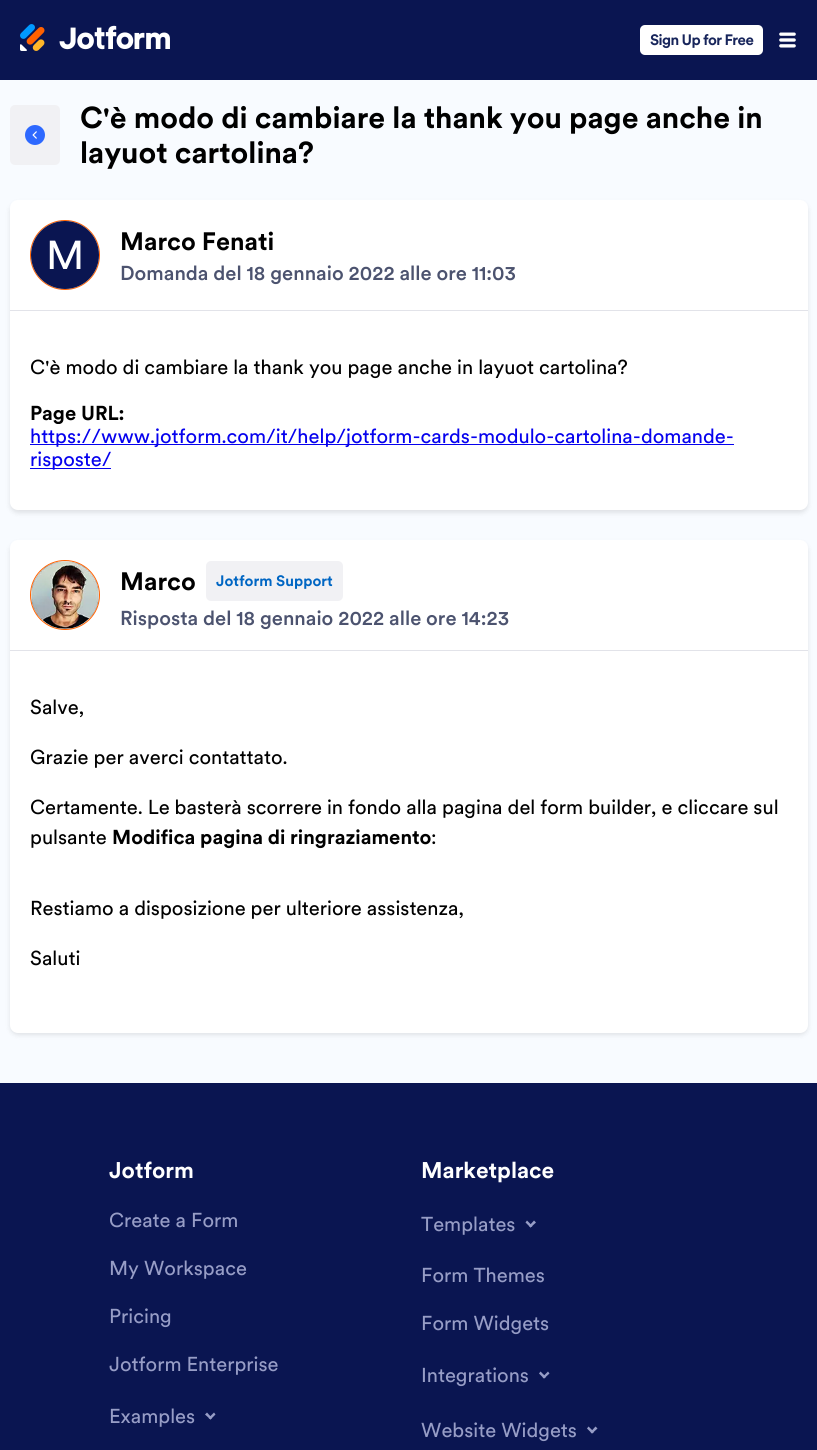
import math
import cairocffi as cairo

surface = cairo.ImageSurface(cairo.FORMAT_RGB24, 817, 1450)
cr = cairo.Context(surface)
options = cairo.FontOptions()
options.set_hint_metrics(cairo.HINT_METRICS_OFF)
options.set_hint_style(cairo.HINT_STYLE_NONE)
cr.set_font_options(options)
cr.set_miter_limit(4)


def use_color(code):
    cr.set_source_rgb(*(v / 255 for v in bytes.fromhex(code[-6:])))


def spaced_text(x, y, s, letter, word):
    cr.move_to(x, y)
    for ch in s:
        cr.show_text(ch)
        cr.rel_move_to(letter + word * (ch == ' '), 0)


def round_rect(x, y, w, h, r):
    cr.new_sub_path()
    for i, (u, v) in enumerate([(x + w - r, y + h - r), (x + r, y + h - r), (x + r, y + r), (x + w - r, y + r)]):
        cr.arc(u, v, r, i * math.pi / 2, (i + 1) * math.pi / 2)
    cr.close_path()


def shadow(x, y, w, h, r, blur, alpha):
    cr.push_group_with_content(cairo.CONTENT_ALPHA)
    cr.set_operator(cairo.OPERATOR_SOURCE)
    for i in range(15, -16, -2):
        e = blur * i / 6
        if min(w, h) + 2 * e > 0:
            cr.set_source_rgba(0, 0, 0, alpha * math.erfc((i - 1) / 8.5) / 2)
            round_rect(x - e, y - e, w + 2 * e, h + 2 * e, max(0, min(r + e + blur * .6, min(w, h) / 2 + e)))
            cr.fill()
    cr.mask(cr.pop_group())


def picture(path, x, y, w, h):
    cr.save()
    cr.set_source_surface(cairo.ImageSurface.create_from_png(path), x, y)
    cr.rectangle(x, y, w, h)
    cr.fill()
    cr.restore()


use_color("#f8fbff")
cr.paint()
use_color("#0a1551")
cr.rectangle(0, 0, 817, 80)
cr.fill()
picture("img1.png", 20, 24, 150, 27)
use_color("#ffffff")
round_rect(640, 25, 123, 30, 5)
cr.fill()
cr.select_font_face("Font", cairo.FONT_SLANT_NORMAL, cairo.FONT_WEIGHT_BOLD)
cr.set_font_size(15)
use_color("#17255b")
spaced_text(650, 45, "Sign Up for Free", -0.6, 0)
picture("img2.png", 779, 32, 17, 16)
use_color("#f1f1f4")
round_rect(10, 105, 50, 60, 5)
cr.fill()
picture("img3.png", 25, 125, 20, 20)
cr.set_font_size(30)
use_color("#000000")
cr.move_to(80, 128)
cr.show_text("C'è modo di cambiare la thank you page anche in")
cr.move_to(80, 163)
cr.show_text("layuot cartolina?")
use_color("#000000")
shadow(10, 203, 798, 310, 8, 2.5, 0.1)
use_color("#ffffff")
round_rect(10, 200, 798, 310, 8)
cr.fill()
use_color("#e2e3e9")
cr.rectangle(10, 310, 798, 1)
cr.fill()
cr.arc(65, 255, 34.5, 0, 2 * math.pi)
use_color("#ff6100")
cr.set_line_width(1)
cr.stroke()
use_color("#0a1551")
cr.arc(65, 255, 34, 0, 2 * math.pi)
cr.fill()
cr.select_font_face("Font")
cr.set_font_size(40)
use_color("#ffffff")
cr.move_to(46, 269)
cr.show_text("M")
cr.select_font_face("Font", cairo.FONT_SLANT_NORMAL, cairo.FONT_WEIGHT_BOLD)
cr.set_font_size(25)
use_color("#000000")
cr.move_to(120, 250)
cr.show_text("Marco Fenati")
cr.select_font_face("Font Medium")
cr.set_font_size(20)
use_color("#4c536f")
cr.move_to(120, 280)
cr.show_text("Domanda del 18 gennaio 2022 alle ore 11:03")
cr.select_font_face("Font")
use_color("#000000")
cr.move_to(30, 374)
cr.show_text("C'è modo di cambiare la thank you page anche in layuot cartolina?")
cr.select_font_face("Font", cairo.FONT_SLANT_NORMAL, cairo.FONT_WEIGHT_BOLD)
cr.move_to(30, 420)
cr.show_text("Page URL:")
use_color("#ffffff")
cr.rectangle(57, 424, 3, 1)
cr.fill()
use_color("#0601ee")
cr.rectangle(30, 444, 704, 1)
cr.fill()
cr.select_font_face("Font")
cr.move_to(30, 443)
cr.show_text("https://www.jotform.com/it/help/jotform-cards-modulo-cartolina-domande-")
cr.rectangle(30, 468, 81, 1)
cr.fill()
cr.move_to(30, 466)
cr.show_text("risposte/")
use_color("#000000")
shadow(10, 543, 798, 492, 8, 2.5, 0.1)
use_color("#ffffff")
round_rect(10, 540, 798, 493, 8)
cr.fill()
use_color("#e2e3e9")
cr.rectangle(10, 650, 798, 1)
cr.fill()
cr.arc(65, 595, 34.5, 0, 2 * math.pi)
use_color("#ff6100")
cr.stroke()
picture("img4.png", 31, 561, 68, 68)
cr.select_font_face("Font", cairo.FONT_SLANT_NORMAL, cairo.FONT_WEIGHT_BOLD)
cr.set_font_size(25)
use_color("#000000")
cr.move_to(120, 590)
cr.show_text("Marco")
use_color("#f1f1f4")
round_rect(206, 561, 137, 40, 5)
cr.fill()
cr.set_font_size(15)
use_color("#0066c3")
cr.move_to(216, 586)
cr.show_text("Jotform Support")
cr.select_font_face("Font Medium")
cr.set_font_size(20)
use_color("#4c536f")
cr.move_to(120, 625)
cr.show_text("Risposta del 18 gennaio 2022 alle ore 14:23")
cr.select_font_face("Font")
use_color("#000000")
cr.move_to(30, 714)
cr.show_text("Salve,")
cr.move_to(30, 764)
cr.show_text("Grazie per averci contattato.")
cr.move_to(30, 814)
cr.show_text("Certamente. Le basterà scorrere in fondo alla pagina del form builder, e cliccare sul")
cr.move_to(30, 844)
cr.show_text("pulsante")
cr.select_font_face("Font", cairo.FONT_SLANT_NORMAL, cairo.FONT_WEIGHT_BOLD)
cr.move_to(112, 844)
cr.show_text("Modifica pagina di ringraziamento")
cr.select_font_face("Font")
cr.move_to(431, 844)
cr.show_text(":")
cr.move_to(30, 915)
cr.show_text("Restiamo a disposizione per ulteriore assistenza,")
cr.move_to(30, 965)
cr.show_text("Saluti")
use_color("#0a1551")
cr.rectangle(0, 1083, 817, 367)
cr.fill()
cr.select_font_face("Font", cairo.FONT_SLANT_NORMAL, cairo.FONT_WEIGHT_BOLD)
cr.set_font_size(22.5)
use_color("#ffffff")
cr.move_to(109, 1178)
cr.show_text("Jotform")
cr.select_font_face("Font")
cr.set_font_size(20)
use_color("#979dc6")
cr.move_to(109, 1227)
cr.show_text("Create a Form")
cr.move_to(109, 1275)
cr.show_text("My Workspace")
cr.move_to(109, 1323)
cr.show_text("Pricing")
cr.move_to(109, 1371)
cr.show_text("Jotform Enterprise")
cr.move_to(109, 1423)
cr.show_text("Examples")
cr.new_path()
cr.move_to(215.5, 1414.5)
cr.line_to(210.5, 1419.5)
cr.line_to(208.5, 1418)
cr.line_to(214, 1412.5)
cr.close_path()
cr.fill()
cr.new_path()
cr.move_to(212, 1418)
cr.line_to(210.5, 1419.5)
cr.line_to(205, 1414.5)
cr.line_to(207, 1412.5)
cr.close_path()
cr.fill()
cr.select_font_face("Font", cairo.FONT_SLANT_NORMAL, cairo.FONT_WEIGHT_BOLD)
cr.set_font_size(22.5)
use_color("#ffffff")
cr.move_to(421, 1178)
cr.show_text("Marketplace")
cr.select_font_face("Font")
cr.set_font_size(20)
use_color("#979dc6")
cr.move_to(421, 1231)
cr.show_text("Templates")
cr.new_path()
cr.move_to(536, 1222.5)
cr.line_to(530.5, 1227.5)
cr.line_to(529, 1226)
cr.line_to(534, 1220.5)
cr.close_path()
cr.fill()
cr.new_path()
cr.move_to(532.5, 1226)
cr.line_to(530.5, 1227.5)
cr.line_to(525.5, 1222.5)
cr.line_to(527, 1220.5)
cr.close_path()
cr.fill()
cr.move_to(421, 1282)
cr.show_text("Form Themes")
cr.move_to(421, 1330)
cr.show_text("Form Widgets")
cr.move_to(421, 1382)
cr.show_text("Integrations")
cr.new_path()
cr.move_to(549.5, 1373.5)
cr.line_to(544, 1378.5)
cr.line_to(542.5, 1377)
cr.line_to(548, 1371.5)
cr.close_path()
cr.fill()
cr.new_path()
cr.move_to(546, 1377)
cr.line_to(544, 1378.5)
cr.line_to(539, 1373.5)
cr.line_to(540.5, 1371.5)
cr.close_path()
cr.fill()
cr.move_to(421, 1437)
cr.show_text("Website Widgets")
cr.new_path()
cr.move_to(597.5, 1428.5)
cr.line_to(592, 1433.5)
cr.line_to(590.5, 1432)
cr.line_to(595.5, 1426.5)
cr.close_path()
cr.fill()
cr.new_path()
cr.move_to(594, 1432)
cr.line_to(592, 1433.5)
cr.line_to(587, 1428.5)
cr.line_to(588.5, 1426.5)
cr.close_path()
cr.fill()
surface.write_to_png("result.png")
